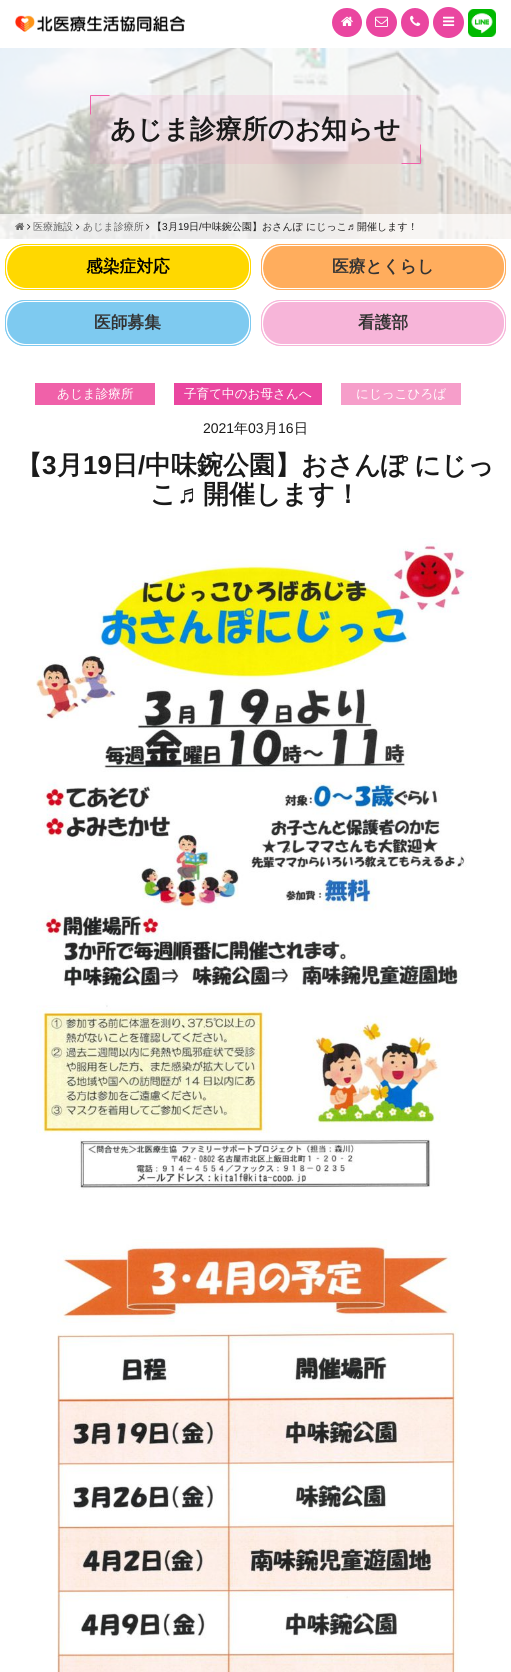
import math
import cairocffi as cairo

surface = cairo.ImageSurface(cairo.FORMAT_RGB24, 511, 1672)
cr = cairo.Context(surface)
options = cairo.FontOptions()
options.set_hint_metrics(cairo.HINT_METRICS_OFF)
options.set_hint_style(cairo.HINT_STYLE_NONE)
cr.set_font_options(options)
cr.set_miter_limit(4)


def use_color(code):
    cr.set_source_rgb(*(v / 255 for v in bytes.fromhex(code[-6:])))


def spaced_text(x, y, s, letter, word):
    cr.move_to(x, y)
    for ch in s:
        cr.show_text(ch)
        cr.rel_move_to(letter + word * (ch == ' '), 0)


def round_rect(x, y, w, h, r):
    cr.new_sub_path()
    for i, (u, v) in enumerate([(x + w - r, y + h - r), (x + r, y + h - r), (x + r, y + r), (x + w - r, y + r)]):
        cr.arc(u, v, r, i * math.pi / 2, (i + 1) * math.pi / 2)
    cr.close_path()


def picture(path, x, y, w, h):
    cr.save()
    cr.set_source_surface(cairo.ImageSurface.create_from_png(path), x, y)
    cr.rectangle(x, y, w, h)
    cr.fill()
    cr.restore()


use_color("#ffffff")
cr.paint()
picture("img1.png", 15, 15, 170, 17)
use_color("#ea46a0")
round_rect(332, 8, 30, 29, 14.5)
cr.fill()
picture("img2.png", 341, 16, 12, 10)
round_rect(366, 8, 31, 29, 14.5)
cr.fill()
picture("img3.png", 375, 16, 13, 11)
round_rect(401, 8, 28, 29, 14)
cr.fill()
picture("img4.png", 410, 15, 11, 11)
cr.arc(448.5, 22.5, 15.5, 0, 2 * math.pi)
cr.fill()
picture("img5.png", 443, 16, 12, 10)
picture("img6.png", 468, 9, 28, 28)
picture("img7.png", 0, 48, 511, 191)
cr.set_source_rgba(0.941, 0.38, 0.663, 0.1)
cr.rectangle(90, 95, 331, 69)
cr.fill()
use_color("#f061a9")
cr.new_path()
cr.move_to(90, 95)
cr.line_to(110, 95)
cr.line_to(109, 96)
cr.line_to(91, 96)
cr.close_path()
cr.fill()
cr.new_path()
cr.move_to(90, 115)
cr.line_to(90, 95)
cr.line_to(91, 96)
cr.line_to(91, 114)
cr.close_path()
cr.fill()
cr.select_font_face("WenQuanYi Zen Hei", cairo.FONT_SLANT_NORMAL, cairo.FONT_WEIGHT_BOLD)
cr.set_font_size(26)
use_color("#1a1a1a")
cr.move_to(110, 138)
cr.show_text("あじま診療所のお知らせ")
use_color("#f061a9")
cr.new_path()
cr.move_to(421, 144)
cr.line_to(421, 164)
cr.line_to(420, 163)
cr.line_to(420, 145)
cr.close_path()
cr.fill()
cr.new_path()
cr.move_to(421, 164)
cr.line_to(401, 164)
cr.line_to(402, 163)
cr.line_to(420, 163)
cr.close_path()
cr.fill()
cr.set_source_rgba(1, 1, 1, 0.7)
cr.rectangle(0, 214, 511, 25)
cr.fill()
picture("img8.png", 15, 222, 10, 8)
picture("img9.png", 27, 224, 4, 6)
cr.select_font_face("WenQuanYi Zen Hei Medium")
cr.set_font_size(10)
use_color("#666666")
cr.move_to(33, 230)
cr.show_text("医療施設")
picture("img10.png", 76, 224, 4, 6)
cr.move_to(83, 230)
cr.show_text("あじま診療所")
picture("img11.png", 146, 224, 4, 6)
use_color("#1a1a1a")
cr.move_to(152, 230)
cr.show_text("【")
cr.select_font_face("Liberation Sans")
cr.move_to(162, 230)
cr.show_text("3")
cr.select_font_face("WenQuanYi Zen Hei Medium")
cr.move_to(168, 230)
cr.show_text("月")
cr.select_font_face("Liberation Sans")
cr.move_to(178, 230)
cr.show_text("19")
cr.select_font_face("WenQuanYi Zen Hei Medium")
cr.move_to(189, 230)
cr.show_text("日")
cr.select_font_face("Liberation Sans")
cr.move_to(199, 230)
cr.show_text("/")
cr.select_font_face("WenQuanYi Zen Hei Medium")
cr.move_to(202, 230)
cr.show_text("中味鋺公園】おさんぽ にじっこ")
cr.select_font_face("Liberation Sans")
cr.move_to(347, 230)
cr.show_text("♬")
cr.select_font_face("WenQuanYi Zen Hei Medium")
cr.move_to(357, 230)
cr.show_text("開催します！")
use_color("#ffd800")
round_rect(5, 244, 246, 46, 20)
cr.fill()
use_color("#ffffff")
cr.new_path()
cr.move_to(9, 280)
cr.curve_to(12, 286, 18, 289, 25, 289)
cr.line_to(231, 289)
cr.curve_to(241, 289, 250, 280, 250, 270)
cr.line_to(250, 264)
cr.curve_to(250, 257, 247, 251, 241, 248)
cr.curve_to(246, 252, 249, 257, 249, 263)
cr.line_to(249, 269)
cr.curve_to(249, 279, 240, 288, 230, 288)
cr.line_to(24, 288)
cr.curve_to(18, 288, 13, 285, 9, 280)
cr.close_path()
cr.fill()
cr.new_path()
cr.move_to(24, 246)
cr.line_to(230, 246)
cr.curve_to(240, 246, 249, 255, 249, 265)
cr.line_to(249, 271)
cr.curve_to(249, 277, 246, 282, 241, 286)
cr.curve_to(247, 283, 250, 277, 250, 270)
cr.line_to(250, 264)
cr.curve_to(250, 254, 241, 245, 231, 245)
cr.line_to(25, 245)
cr.curve_to(18, 245, 12, 248, 9, 254)
cr.curve_to(13, 249, 18, 246, 24, 246)
cr.close_path()
cr.fill()
cr.new_path()
cr.move_to(15, 248)
cr.curve_to(9, 251, 6, 257, 6, 264)
cr.line_to(6, 270)
cr.curve_to(6, 280, 15, 289, 25, 289)
cr.line_to(231, 289)
cr.curve_to(238, 289, 244, 286, 247, 280)
cr.curve_to(243, 285, 238, 288, 232, 288)
cr.line_to(26, 288)
cr.curve_to(16, 288, 7, 279, 7, 269)
cr.line_to(7, 263)
cr.curve_to(7, 257, 10, 252, 15, 248)
cr.close_path()
cr.fill()
cr.new_path()
cr.move_to(26, 246)
cr.line_to(232, 246)
cr.curve_to(238, 246, 243, 249, 247, 254)
cr.curve_to(244, 248, 238, 245, 231, 245)
cr.line_to(25, 245)
cr.curve_to(15, 245, 6, 254, 6, 264)
cr.line_to(6, 270)
cr.curve_to(6, 277, 9, 283, 15, 286)
cr.curve_to(1, 275, 6, 246, 26, 246)
cr.close_path()
cr.fill()
round_rect(5.5, 244.5, 245, 45, 19.5)
use_color("#ffd800")
cr.set_line_width(1)
cr.stroke()
cr.select_font_face("WenQuanYi Zen Hei", cairo.FONT_SLANT_NORMAL, cairo.FONT_WEIGHT_BOLD)
cr.set_font_size(16.75)
use_color("#000000")
cr.move_to(86, 272)
cr.show_text("感染症対応")
use_color("#ffad5d")
round_rect(261, 244, 245, 46, 20)
cr.fill()
use_color("#ffffff")
cr.new_path()
cr.move_to(265, 280)
cr.curve_to(268, 286, 274, 289, 281, 289)
cr.line_to(486, 289)
cr.curve_to(496, 289, 505, 280, 505, 270)
cr.line_to(505, 264)
cr.curve_to(505, 257, 502, 251, 496, 248)
cr.curve_to(501, 252, 504, 257, 504, 263)
cr.line_to(504, 269)
cr.curve_to(504, 279, 495, 288, 485, 288)
cr.line_to(280, 288)
cr.curve_to(274, 288, 269, 285, 265, 280)
cr.close_path()
cr.fill()
cr.new_path()
cr.move_to(280, 246)
cr.line_to(485, 246)
cr.curve_to(495, 246, 504, 255, 504, 265)
cr.line_to(504, 271)
cr.curve_to(504, 277, 501, 282, 496, 286)
cr.curve_to(502, 283, 505, 277, 505, 270)
cr.line_to(505, 264)
cr.curve_to(505, 254, 496, 245, 486, 245)
cr.line_to(281, 245)
cr.curve_to(274, 245, 268, 248, 265, 254)
cr.curve_to(269, 249, 274, 246, 280, 246)
cr.close_path()
cr.fill()
cr.new_path()
cr.move_to(271, 248)
cr.curve_to(265, 251, 262, 257, 262, 264)
cr.line_to(262, 270)
cr.curve_to(262, 280, 271, 289, 281, 289)
cr.line_to(486, 289)
cr.curve_to(493, 289, 499, 286, 502, 280)
cr.curve_to(498, 285, 493, 288, 487, 288)
cr.line_to(282, 288)
cr.curve_to(272, 288, 263, 279, 263, 269)
cr.line_to(263, 263)
cr.curve_to(263, 257, 266, 252, 271, 248)
cr.close_path()
cr.fill()
cr.new_path()
cr.move_to(282, 246)
cr.line_to(487, 246)
cr.curve_to(493, 246, 498, 249, 502, 254)
cr.curve_to(499, 248, 493, 245, 486, 245)
cr.line_to(281, 245)
cr.curve_to(271, 245, 262, 254, 262, 264)
cr.line_to(262, 270)
cr.curve_to(262, 277, 265, 283, 271, 286)
cr.curve_to(257, 275, 262, 246, 282, 246)
cr.close_path()
cr.fill()
round_rect(261.5, 244.5, 244, 45, 19.5)
use_color("#ffad5d")
cr.stroke()
use_color("#333333")
cr.move_to(332, 272)
cr.show_text("医療とくらし")
use_color("#7ecaf0")
round_rect(5, 300, 246, 46, 20)
cr.fill()
use_color("#ffffff")
cr.new_path()
cr.move_to(9, 336)
cr.curve_to(12, 342, 18, 345, 25, 345)
cr.line_to(231, 345)
cr.curve_to(241, 345, 250, 336, 250, 326)
cr.line_to(250, 320)
cr.curve_to(250, 313, 247, 307, 241, 304)
cr.curve_to(246, 308, 249, 313, 249, 319)
cr.line_to(249, 325)
cr.curve_to(249, 335, 240, 344, 230, 344)
cr.line_to(24, 344)
cr.curve_to(18, 344, 13, 341, 9, 336)
cr.close_path()
cr.fill()
cr.new_path()
cr.move_to(24, 302)
cr.line_to(230, 302)
cr.curve_to(240, 302, 249, 311, 249, 321)
cr.line_to(249, 327)
cr.curve_to(249, 333, 246, 338, 241, 342)
cr.curve_to(247, 339, 250, 333, 250, 326)
cr.line_to(250, 320)
cr.curve_to(250, 310, 241, 301, 231, 301)
cr.line_to(25, 301)
cr.curve_to(18, 301, 12, 304, 9, 310)
cr.curve_to(13, 305, 18, 302, 24, 302)
cr.close_path()
cr.fill()
cr.new_path()
cr.move_to(15, 304)
cr.curve_to(9, 307, 6, 313, 6, 320)
cr.line_to(6, 326)
cr.curve_to(6, 336, 15, 345, 25, 345)
cr.line_to(231, 345)
cr.curve_to(238, 345, 244, 342, 247, 336)
cr.curve_to(243, 341, 238, 344, 232, 344)
cr.line_to(26, 344)
cr.curve_to(16, 344, 7, 335, 7, 325)
cr.line_to(7, 319)
cr.curve_to(7, 313, 10, 308, 15, 304)
cr.close_path()
cr.fill()
cr.new_path()
cr.move_to(26, 302)
cr.line_to(232, 302)
cr.curve_to(238, 302, 243, 305, 247, 310)
cr.curve_to(244, 304, 238, 301, 231, 301)
cr.line_to(25, 301)
cr.curve_to(15, 301, 6, 310, 6, 320)
cr.line_to(6, 326)
cr.curve_to(6, 333, 9, 339, 15, 342)
cr.curve_to(1, 331, 6, 302, 26, 302)
cr.close_path()
cr.fill()
round_rect(5.5, 300.5, 245, 45, 19.5)
use_color("#7ecaf0")
cr.stroke()
use_color("#333333")
cr.move_to(94, 328)
cr.show_text("医師募集")
use_color("#f7b5d9")
round_rect(261, 300, 245, 46, 20)
cr.fill()
use_color("#ffffff")
cr.new_path()
cr.move_to(265, 336)
cr.curve_to(268, 342, 274, 345, 281, 345)
cr.line_to(486, 345)
cr.curve_to(496, 345, 505, 336, 505, 326)
cr.line_to(505, 320)
cr.curve_to(505, 313, 502, 307, 496, 304)
cr.curve_to(501, 308, 504, 313, 504, 319)
cr.line_to(504, 325)
cr.curve_to(504, 335, 495, 344, 485, 344)
cr.line_to(280, 344)
cr.curve_to(274, 344, 269, 341, 265, 336)
cr.close_path()
cr.fill()
cr.new_path()
cr.move_to(280, 302)
cr.line_to(485, 302)
cr.curve_to(495, 302, 504, 311, 504, 321)
cr.line_to(504, 327)
cr.curve_to(504, 333, 501, 338, 496, 342)
cr.curve_to(502, 339, 505, 333, 505, 326)
cr.line_to(505, 320)
cr.curve_to(505, 310, 496, 301, 486, 301)
cr.line_to(281, 301)
cr.curve_to(274, 301, 268, 304, 265, 310)
cr.curve_to(269, 305, 274, 302, 280, 302)
cr.close_path()
cr.fill()
cr.new_path()
cr.move_to(271, 304)
cr.curve_to(265, 307, 262, 313, 262, 320)
cr.line_to(262, 326)
cr.curve_to(262, 336, 271, 345, 281, 345)
cr.line_to(486, 345)
cr.curve_to(493, 345, 499, 342, 502, 336)
cr.curve_to(498, 341, 493, 344, 487, 344)
cr.line_to(282, 344)
cr.curve_to(272, 344, 263, 335, 263, 325)
cr.line_to(263, 319)
cr.curve_to(263, 313, 266, 308, 271, 304)
cr.close_path()
cr.fill()
cr.new_path()
cr.move_to(282, 302)
cr.line_to(487, 302)
cr.curve_to(493, 302, 498, 305, 502, 310)
cr.curve_to(499, 304, 493, 301, 486, 301)
cr.line_to(281, 301)
cr.curve_to(271, 301, 262, 310, 262, 320)
cr.line_to(262, 326)
cr.curve_to(262, 333, 265, 339, 271, 342)
cr.curve_to(257, 331, 262, 302, 282, 302)
cr.close_path()
cr.fill()
round_rect(261.5, 300.5, 244, 45, 19.5)
use_color("#f7b5d9")
cr.stroke()
use_color("#333333")
cr.move_to(358, 328)
cr.show_text("看護部")
use_color("#f061a9")
cr.rectangle(35, 383, 120, 22)
cr.fill()
cr.select_font_face("WenQuanYi Zen Hei Medium")
cr.set_font_size(12.6)
use_color("#ffffff")
cr.move_to(57, 398)
cr.show_text("あじま診療所")
use_color("#ea46a0")
cr.rectangle(174, 383, 148, 22)
cr.fill()
use_color("#ffffff")
cr.move_to(184, 398)
cr.show_text("子育て中のお母さんへ")
use_color("#f69eca")
cr.rectangle(341, 383, 120, 22)
cr.fill()
use_color("#ffffff")
cr.move_to(356, 398)
cr.show_text("にじっこひろば")
cr.select_font_face("Liberation Sans")
cr.set_font_size(14)
use_color("#1a1a1a")
cr.move_to(203, 433)
cr.show_text("2021")
cr.select_font_face("WenQuanYi Zen Hei Medium")
cr.move_to(234, 433)
cr.show_text("年")
cr.select_font_face("Liberation Sans")
cr.move_to(248, 433)
cr.show_text("03")
cr.select_font_face("WenQuanYi Zen Hei Medium")
cr.move_to(264, 433)
cr.show_text("月")
cr.select_font_face("Liberation Sans")
cr.move_to(278, 433)
cr.show_text("16")
cr.select_font_face("WenQuanYi Zen Hei Medium")
cr.move_to(294, 433)
cr.show_text("日")
cr.select_font_face("WenQuanYi Zen Hei", cairo.FONT_SLANT_NORMAL, cairo.FONT_WEIGHT_BOLD)
cr.set_font_size(26)
cr.move_to(16, 474)
cr.show_text("【")
cr.select_font_face("Liberation Sans", cairo.FONT_SLANT_NORMAL, cairo.FONT_WEIGHT_BOLD)
cr.move_to(42, 474)
cr.show_text("3")
cr.select_font_face("WenQuanYi Zen Hei", cairo.FONT_SLANT_NORMAL, cairo.FONT_WEIGHT_BOLD)
cr.move_to(57, 474)
cr.show_text("月")
cr.select_font_face("Liberation Sans", cairo.FONT_SLANT_NORMAL, cairo.FONT_WEIGHT_BOLD)
cr.move_to(83, 474)
cr.show_text("19")
cr.select_font_face("WenQuanYi Zen Hei", cairo.FONT_SLANT_NORMAL, cairo.FONT_WEIGHT_BOLD)
cr.move_to(112, 474)
cr.show_text("日")
cr.select_font_face("Liberation Sans", cairo.FONT_SLANT_NORMAL, cairo.FONT_WEIGHT_BOLD)
cr.move_to(138, 474)
cr.show_text("/")
cr.select_font_face("WenQuanYi Zen Hei", cairo.FONT_SLANT_NORMAL, cairo.FONT_WEIGHT_BOLD)
spaced_text(145, 474, "中味鋺公園】おさんぽ にじっ", 0, -1)
cr.move_to(150, 503)
cr.show_text("こ")
cr.select_font_face("Liberation Sans", cairo.FONT_SLANT_NORMAL, cairo.FONT_WEIGHT_BOLD)
cr.move_to(177, 503)
cr.show_text("♬")
cr.select_font_face("WenQuanYi Zen Hei", cairo.FONT_SLANT_NORMAL, cairo.FONT_WEIGHT_BOLD)
cr.move_to(203, 503)
cr.show_text("開催します！")
picture("img12.png", 36, 538, 436, 652)
picture("img13.png", 57, 1239, 403, 433)
surface.write_to_png("result.png")
